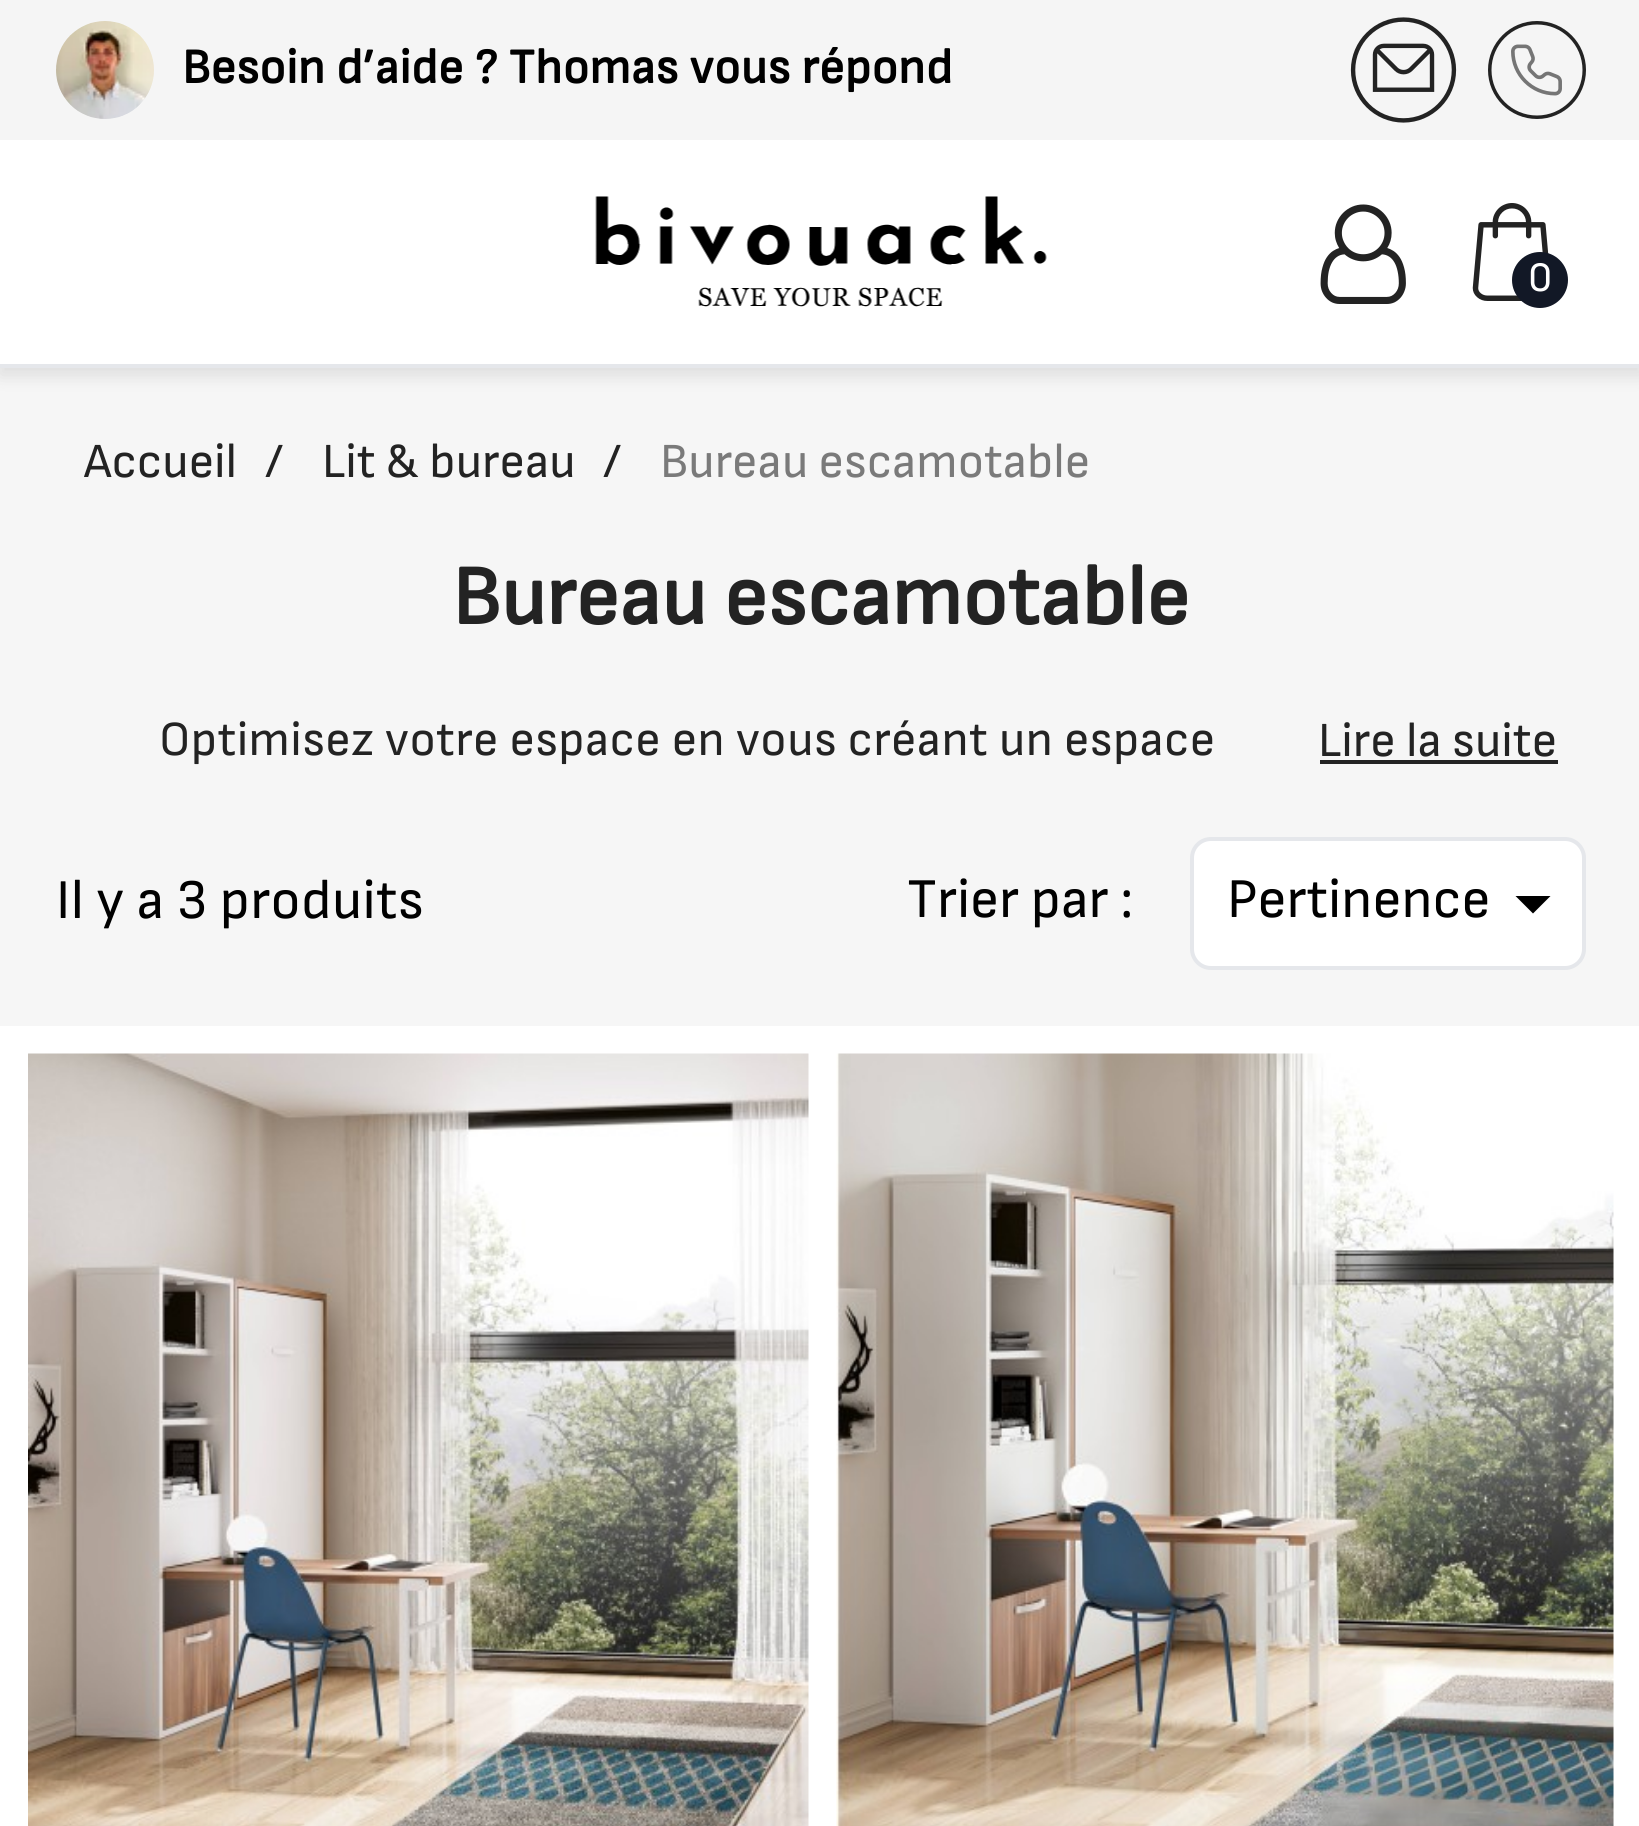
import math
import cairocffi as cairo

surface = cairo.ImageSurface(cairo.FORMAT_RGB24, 1639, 1826)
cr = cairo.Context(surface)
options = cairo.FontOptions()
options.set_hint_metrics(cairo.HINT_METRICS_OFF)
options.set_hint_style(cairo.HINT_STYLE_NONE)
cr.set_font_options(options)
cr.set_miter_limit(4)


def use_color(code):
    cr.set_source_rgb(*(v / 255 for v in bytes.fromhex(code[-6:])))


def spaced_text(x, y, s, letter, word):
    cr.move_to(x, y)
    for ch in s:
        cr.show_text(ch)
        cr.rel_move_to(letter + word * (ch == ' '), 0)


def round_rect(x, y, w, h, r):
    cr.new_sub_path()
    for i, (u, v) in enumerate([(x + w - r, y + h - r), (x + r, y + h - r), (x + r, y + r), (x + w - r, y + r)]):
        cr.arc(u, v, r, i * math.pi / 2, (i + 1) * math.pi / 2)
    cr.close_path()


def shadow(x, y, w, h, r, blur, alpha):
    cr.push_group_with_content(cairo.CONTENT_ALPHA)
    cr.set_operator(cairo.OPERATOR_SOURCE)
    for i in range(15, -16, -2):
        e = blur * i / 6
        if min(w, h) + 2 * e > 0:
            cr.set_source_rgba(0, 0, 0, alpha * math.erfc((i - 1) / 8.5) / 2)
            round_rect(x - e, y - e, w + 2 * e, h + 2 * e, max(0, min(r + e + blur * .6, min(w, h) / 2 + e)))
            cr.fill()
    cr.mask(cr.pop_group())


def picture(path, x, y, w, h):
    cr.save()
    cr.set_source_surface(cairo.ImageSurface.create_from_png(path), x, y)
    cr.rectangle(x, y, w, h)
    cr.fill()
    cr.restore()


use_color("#f6f6f6")
cr.paint()
use_color("#000000")
shadow(0, 7, 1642, 368, 0, 9, 0.11)
use_color("#ffffff")
cr.rectangle(0, 140, 1639, 224)
cr.fill()
use_color("#f5f5f5")
cr.rectangle(0, 0, 1639, 140)
cr.fill()
picture("img1.png", 56, 21, 98, 98)
cr.select_font_face("Sofia Sans", cairo.FONT_SLANT_NORMAL, cairo.FONT_WEIGHT_BOLD)
cr.set_font_size(49)
use_color("#000000")
spaced_text(182, 83, "Besoin d’aide ? Thomas vous répond", 0.35, 0)
picture("img2.png", 1350, 17, 107, 106)
picture("img3.png", 1488, 21, 98, 98)
use_color("#e5e7eb")
cr.rectangle(0, 364, 1639, 4)
cr.fill()
picture("img4.png", 595, 196, 452, 111)
picture("img5.png", 1320, 204, 86, 100)
picture("img6.png", 1472, 203, 77, 98)
use_color("#121826")
cr.arc(1540, 280, 28, 0, 2 * math.pi)
cr.fill()
cr.select_font_face("Sofia Sans")
cr.set_font_size(42)
use_color("#ffffff")
cr.move_to(1528, 291)
cr.show_text("0")
cr.set_font_size(49)
use_color("#232323")
cr.move_to(84, 477)
cr.show_text("Accueil")
cr.move_to(265, 477)
cr.show_text("/")
cr.move_to(322, 477)
cr.show_text("Lit & bureau")
cr.move_to(603, 477)
cr.show_text("/")
use_color("#7a7a7a")
cr.move_to(660, 477)
cr.show_text("Bureau escamotable")
cr.select_font_face("Sofia Sans", cairo.FONT_SLANT_NORMAL, cairo.FONT_WEIGHT_BOLD)
cr.set_font_size(84)
use_color("#232323")
cr.move_to(452, 624)
cr.show_text("Bureau escamotable")
cr.select_font_face("Sofia Sans")
cr.set_font_size(49)
spaced_text(159, 755, "Optimisez votre espace en vous créant un espace", 0.35, 0)
cr.move_to(1318, 756)
cr.show_text("Lire la suite")
cr.rectangle(1320, 760, 238, 4)
cr.fill()
cr.set_font_size(56)
use_color("#000000")
spaced_text(56, 918, "Il y a 3 produits", 0.35, 0)
cr.move_to(907, 917)
cr.show_text("Trier par :")
use_color("#ffffff")
round_rect(1192, 839, 392, 129, 19)
cr.fill_preserve()
use_color("#e5e7eb")
cr.set_line_width(4)
cr.stroke()
use_color("#000000")
cr.move_to(1227, 917)
cr.show_text("Pertinence")
cr.new_path()
cr.move_to(1515.5, 896)
cr.line_to(1550.5, 896)
cr.line_to(1533, 913.5)
cr.close_path()
cr.fill()
use_color("#ffffff")
cr.rectangle(0, 1026, 1639, 800)
cr.fill()
picture("img7.png", 28, 1053, 781, 773)
picture("img8.png", 836, 1053, 778, 773)
surface.write_to_png("result.png")
